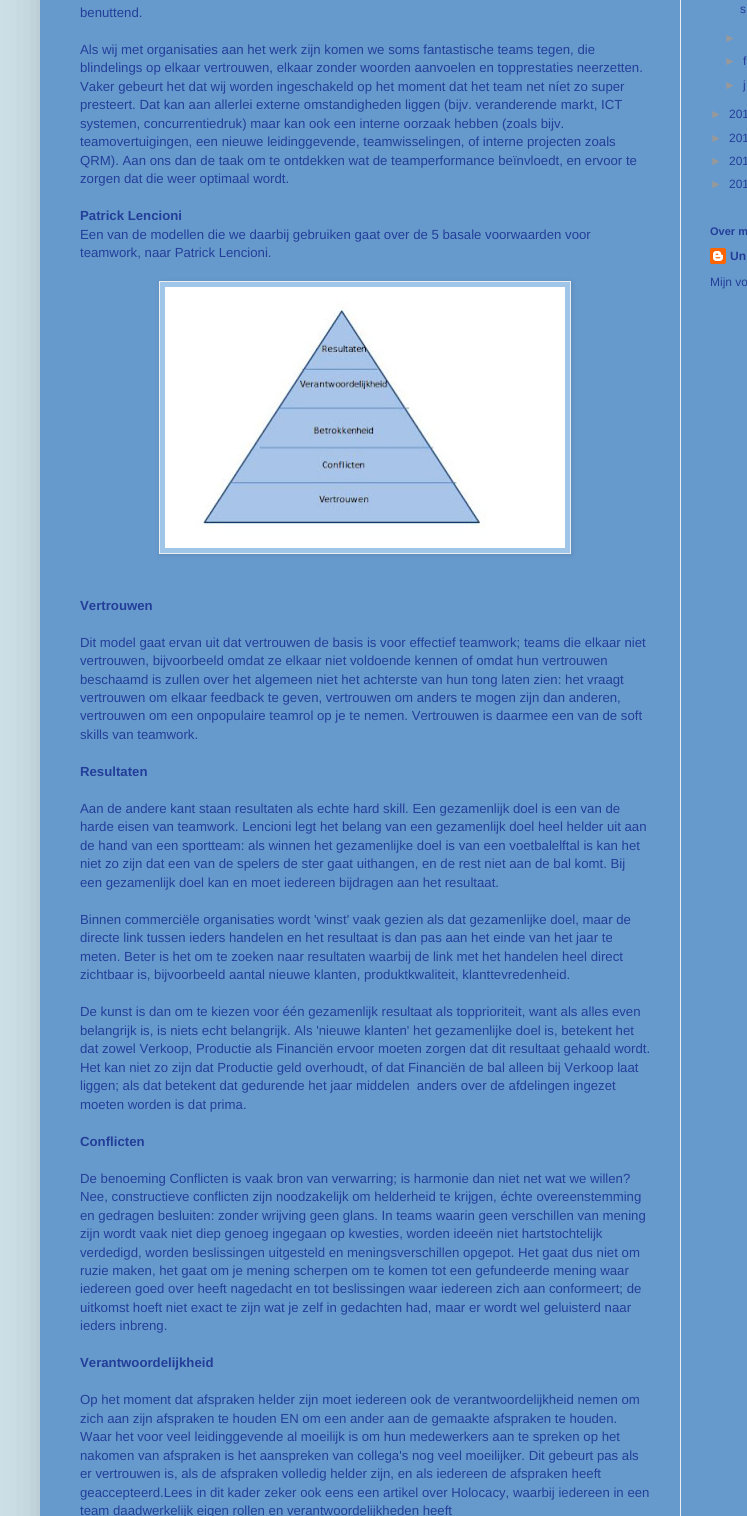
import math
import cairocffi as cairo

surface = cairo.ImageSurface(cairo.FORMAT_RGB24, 747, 1516)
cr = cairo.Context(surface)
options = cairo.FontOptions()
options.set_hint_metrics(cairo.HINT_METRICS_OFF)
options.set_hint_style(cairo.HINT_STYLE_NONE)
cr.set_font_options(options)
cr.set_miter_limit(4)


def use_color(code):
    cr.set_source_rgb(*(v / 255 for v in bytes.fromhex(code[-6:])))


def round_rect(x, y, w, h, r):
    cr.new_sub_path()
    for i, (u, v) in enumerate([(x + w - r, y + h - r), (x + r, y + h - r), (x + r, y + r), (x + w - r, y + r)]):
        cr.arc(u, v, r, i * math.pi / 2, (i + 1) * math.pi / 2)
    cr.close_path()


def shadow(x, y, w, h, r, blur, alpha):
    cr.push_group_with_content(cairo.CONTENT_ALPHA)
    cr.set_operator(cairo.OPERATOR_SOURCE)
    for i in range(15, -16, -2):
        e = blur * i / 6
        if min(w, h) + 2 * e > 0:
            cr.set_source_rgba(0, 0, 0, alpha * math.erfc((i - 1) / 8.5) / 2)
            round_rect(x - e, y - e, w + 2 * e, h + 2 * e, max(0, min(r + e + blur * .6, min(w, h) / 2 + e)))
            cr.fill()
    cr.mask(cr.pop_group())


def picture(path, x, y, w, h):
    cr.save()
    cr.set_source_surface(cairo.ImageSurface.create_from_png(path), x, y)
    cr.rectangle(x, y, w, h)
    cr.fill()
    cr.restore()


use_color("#ccdfe7")
cr.paint()
use_color("#000000")
shadow(40, -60, 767, 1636, 0, 20, 0.15)
use_color("#6699cc")
cr.rectangle(40, 0, 707, 1516)
cr.fill()
use_color("#eeeeee")
cr.rectangle(680, 0, 1, 1516)
cr.fill()
cr.select_font_face("Liberation Sans")
cr.set_font_size(13.2)
use_color("#233e99")
cr.move_to(80, 17)
cr.show_text("benuttend.")
cr.move_to(80, 54)
cr.show_text("Als wij met organisaties aan het werk zijn komen we soms fantastische teams tegen, die")
cr.move_to(80, 72)
cr.show_text("blindelings op elkaar vertrouwen, elkaar zonder woorden aanvoelen en topprestaties neerzetten.")
cr.move_to(80, 91)
cr.show_text("Vaker gebeurt het dat wij worden ingeschakeld op het moment dat het team net níet zo super")
cr.move_to(80, 109)
cr.show_text("presteert. Dat kan aan allerlei externe omstandigheden liggen (bijv. veranderende markt, ICT")
cr.move_to(80, 128)
cr.show_text("systemen, concurrentiedruk) maar kan ook een interne oorzaak hebben (zoals bijv.")
cr.move_to(80, 146)
cr.show_text("teamovertuigingen, een nieuwe leidinggevende, teamwisselingen, of interne projecten zoals")
cr.move_to(80, 165)
cr.show_text("QRM). Aan ons dan de taak om te ontdekken wat de teamperformance beïnvloedt, en ervoor te")
cr.move_to(80, 183)
cr.show_text("zorgen dat die weer optimaal wordt.")
cr.select_font_face("Liberation Sans", cairo.FONT_SLANT_NORMAL, cairo.FONT_WEIGHT_BOLD)
cr.move_to(80, 220)
cr.show_text("Patrick Lencioni")
cr.select_font_face("Liberation Sans")
cr.move_to(80, 239)
cr.show_text("Een van de modellen die we daarbij gebruiken gaat over de 5 basale voorwaarden voor")
cr.move_to(80, 257)
cr.show_text("teamwork, naar Patrick Lencioni.")
use_color("#000000")
shadow(160, 282, 412, 273, 0, 2.5, 0.1)
use_color("#9fc5e8")
cr.rectangle(159.5, 281.5, 411, 272)
cr.fill_preserve()
use_color("#eeeeee")
cr.set_line_width(1)
cr.stroke()
picture("img1.png", 165, 287, 400, 261)
cr.select_font_face("Liberation Sans", cairo.FONT_SLANT_NORMAL, cairo.FONT_WEIGHT_BOLD)
use_color("#233e99")
cr.move_to(80, 610)
cr.show_text("Vertrouwen")
cr.select_font_face("Liberation Sans")
cr.move_to(80, 647)
cr.show_text("Dit model gaat ervan uit dat vertrouwen de basis is voor effectief teamwork; teams die elkaar niet")
cr.move_to(80, 665)
cr.show_text("vertrouwen, bijvoorbeeld omdat ze elkaar niet voldoende kennen of omdat hun vertrouwen")
cr.move_to(80, 684)
cr.show_text("beschaamd is zullen over het algemeen niet het achterste van hun tong laten zien: het vraagt")
cr.move_to(80, 702)
cr.show_text("vertrouwen om elkaar feedback te geven, vertrouwen om anders te mogen zijn dan anderen,")
cr.move_to(80, 720)
cr.show_text("vertrouwen om een onpopulaire teamrol op je te nemen. Vertrouwen is daarmee een van de soft")
cr.move_to(80, 739)
cr.show_text("skills van teamwork.")
cr.select_font_face("Liberation Sans", cairo.FONT_SLANT_NORMAL, cairo.FONT_WEIGHT_BOLD)
cr.move_to(80, 776)
cr.show_text("Resultaten")
cr.select_font_face("Liberation Sans")
cr.move_to(80, 813)
cr.show_text("Aan de andere kant staan resultaten als echte hard skill. Een gezamenlijk doel is een van de")
cr.move_to(80, 831)
cr.show_text("harde eisen van teamwork. Lencioni legt het belang van een gezamenlijk doel heel helder uit aan")
cr.move_to(80, 850)
cr.show_text("de hand van een sportteam: als winnen het gezamenlijke doel is van een voetbalelftal is kan het")
cr.move_to(80, 868)
cr.show_text("niet zo zijn dat een van de spelers de ster gaat uithangen, en de rest niet aan de bal komt. Bij")
cr.move_to(80, 887)
cr.show_text("een gezamenlijk doel kan en moet iedereen bijdragen aan het resultaat.")
cr.move_to(80, 924)
cr.show_text("Binnen commerciële organisaties wordt 'winst' vaak gezien als dat gezamenlijke doel, maar de")
cr.move_to(80, 942)
cr.show_text("directe link tussen ieders handelen en het resultaat is dan pas aan het einde van het jaar te")
cr.move_to(80, 961)
cr.show_text("meten. Beter is het om te zoeken naar resultaten waarbij de link met het handelen heel direct")
cr.move_to(80, 979)
cr.show_text("zichtbaar is, bijvoorbeeld aantal nieuwe klanten, produktkwaliteit, klanttevredenheid.")
cr.move_to(80, 1016)
cr.show_text("De kunst is dan om te kiezen voor één gezamenlijk resultaat als topprioriteit, want als alles even")
cr.move_to(80, 1035)
cr.show_text("belangrijk is, is niets echt belangrijk. Als 'nieuwe klanten' het gezamenlijke doel is, betekent het")
cr.move_to(80, 1053)
cr.show_text("dat zowel Verkoop, Productie als Financiën ervoor moeten zorgen dat dit resultaat gehaald wordt.")
cr.move_to(80, 1072)
cr.show_text("Het kan niet zo zijn dat Productie geld overhoudt, of dat Financiën de bal alleen bij Verkoop laat")
cr.move_to(80, 1090)
cr.show_text("liggen; als dat betekent dat gedurende het jaar middelen  anders over de afdelingen ingezet")
cr.move_to(80, 1109)
cr.show_text("moeten worden is dat prima.")
cr.select_font_face("Liberation Sans", cairo.FONT_SLANT_NORMAL, cairo.FONT_WEIGHT_BOLD)
cr.move_to(80, 1146)
cr.show_text("Conflicten")
cr.select_font_face("Liberation Sans")
cr.move_to(80, 1183)
cr.show_text("De benoeming Conflicten is vaak bron van verwarring; is harmonie dan niet net wat we willen?")
cr.move_to(80, 1201)
cr.show_text("Nee, constructieve conflicten zijn noodzakelijk om helderheid te krijgen, échte overeenstemming")
cr.move_to(80, 1220)
cr.show_text("en gedragen besluiten: zonder wrijving geen glans. In teams waarin geen verschillen van mening")
cr.move_to(80, 1238)
cr.show_text("zijn wordt vaak niet diep genoeg ingegaan op kwesties, worden ideeën niet hartstochtelijk")
cr.move_to(80, 1257)
cr.show_text("verdedigd, worden beslissingen uitgesteld en meningsverschillen opgepot. Het gaat dus niet om")
cr.move_to(80, 1275)
cr.show_text("ruzie maken, het gaat om je mening scherpen om te komen tot een gefundeerde mening waar")
cr.move_to(80, 1293)
cr.show_text("iedereen goed over heeft nagedacht en tot beslissingen waar iedereen zich aan conformeert; de")
cr.move_to(80, 1312)
cr.show_text("uitkomst hoeft niet exact te zijn wat je zelf in gedachten had, maar er wordt wel geluisterd naar")
cr.move_to(80, 1330)
cr.show_text("ieders inbreng.")
cr.select_font_face("Liberation Sans", cairo.FONT_SLANT_NORMAL, cairo.FONT_WEIGHT_BOLD)
cr.move_to(80, 1367)
cr.show_text("Verantwoordelijkheid")
cr.select_font_face("Liberation Sans")
cr.move_to(80, 1404)
cr.show_text("Op het moment dat afspraken helder zijn moet iedereen ook de verantwoordelijkheid nemen om")
cr.move_to(80, 1423)
cr.show_text("zich aan zijn afspraken te houden EN om een ander aan de gemaakte afspraken te houden.")
cr.move_to(80, 1441)
cr.show_text("Waar het voor veel leidinggevende al moeilijk is om hun medewerkers aan te spreken op het")
cr.move_to(80, 1460)
cr.show_text("nakomen van afspraken is het aanspreken van collega's nog veel moeilijker. Dit gebeurt pas als")
cr.move_to(80, 1478)
cr.show_text("er vertrouwen is, als de afspraken volledig helder zijn, en als iedereen de afspraken heeft")
cr.move_to(80, 1497)
cr.show_text("geaccepteerd.Lees in dit kader zeker ook eens een artikel over Holocacy, waarbij iedereen in een")
cr.move_to(80, 1515)
cr.show_text("team daadwerkelijk eigen rollen en verantwoordelijkheden heeft")
cr.set_font_size(12)
cr.move_to(740, 13)
cr.show_text("s")
use_color("#999999")
cr.move_to(724, 42)
cr.show_text("►")
cr.move_to(724, 65)
cr.show_text("►")
use_color("#233e99")
cr.move_to(743, 65)
cr.show_text("f")
use_color("#999999")
cr.move_to(724, 89)
cr.show_text("►")
use_color("#233e99")
cr.move_to(743, 89)
cr.show_text("j")
use_color("#999999")
cr.move_to(710, 118)
cr.show_text("►")
use_color("#233e99")
cr.move_to(729, 118)
cr.show_text("201")
use_color("#999999")
cr.move_to(710, 142)
cr.show_text("►")
use_color("#233e99")
cr.move_to(729, 142)
cr.show_text("201")
use_color("#999999")
cr.move_to(710, 165)
cr.show_text("►")
use_color("#233e99")
cr.move_to(729, 165)
cr.show_text("201")
use_color("#999999")
cr.move_to(710, 188)
cr.show_text("►")
use_color("#233e99")
cr.move_to(729, 188)
cr.show_text("201")
cr.select_font_face("Liberation Sans", cairo.FONT_SLANT_NORMAL, cairo.FONT_WEIGHT_BOLD)
cr.set_font_size(11)
cr.move_to(710, 235)
cr.show_text("Over m")
picture("img2.png", 710, 248, 16, 16)
cr.set_font_size(12)
cr.move_to(730, 260)
cr.show_text("Un")
cr.select_font_face("Liberation Sans")
cr.move_to(710, 286)
cr.show_text("Mijn vo")
surface.write_to_png("result.png")
